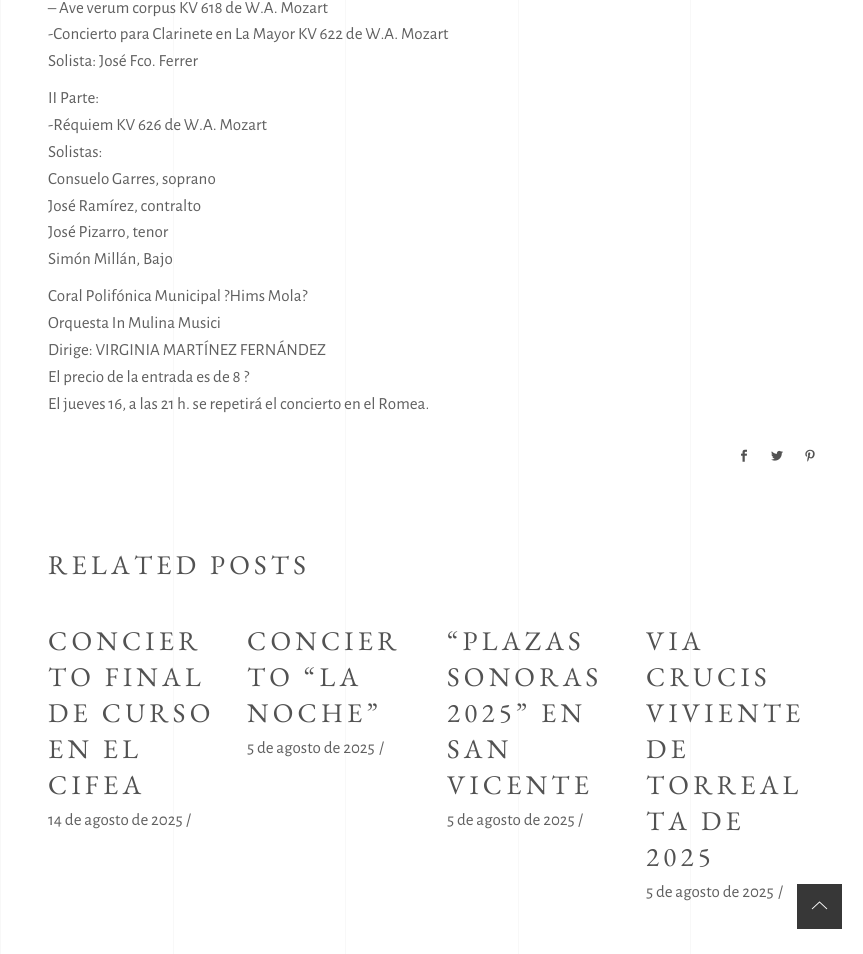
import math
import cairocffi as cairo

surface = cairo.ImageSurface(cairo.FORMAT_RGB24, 863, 954)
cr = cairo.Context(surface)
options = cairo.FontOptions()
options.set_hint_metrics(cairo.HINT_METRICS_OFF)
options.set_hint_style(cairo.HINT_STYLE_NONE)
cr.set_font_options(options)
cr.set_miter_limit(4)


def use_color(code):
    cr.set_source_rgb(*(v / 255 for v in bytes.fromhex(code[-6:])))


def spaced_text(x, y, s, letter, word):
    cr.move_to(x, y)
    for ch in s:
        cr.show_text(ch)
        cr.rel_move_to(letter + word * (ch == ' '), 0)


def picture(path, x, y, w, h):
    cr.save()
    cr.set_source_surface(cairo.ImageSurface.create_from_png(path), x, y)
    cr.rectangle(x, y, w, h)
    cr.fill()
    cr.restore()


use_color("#ffffff")
cr.paint()
use_color("#f8f8f8")
cr.rectangle(0, 0, 1, 954)
cr.fill()
cr.rectangle(173, 0, 1, 954)
cr.fill()
cr.rectangle(345, 0, 1, 954)
cr.fill()
cr.rectangle(518, 0, 1, 954)
cr.fill()
cr.rectangle(690, 0, 1, 954)
cr.fill()
cr.select_font_face("Alegreya Sans")
cr.set_font_size(17)
use_color("#5f5f5f")
cr.move_to(48, 13)
cr.show_text("– Ave verum corpus KV 618 de W.A. Mozart")
cr.move_to(48, 39)
cr.show_text("-Concierto para Clarinete en La Mayor KV 622 de W.A. Mozart")
cr.move_to(48, 66)
cr.show_text("Solista: José Fco. Ferrer")
cr.move_to(48, 103)
cr.show_text("II Parte:")
cr.move_to(48, 130)
cr.show_text("-Réquiem KV 626 de W.A. Mozart")
cr.move_to(48, 157)
cr.show_text("Solistas:")
cr.move_to(48, 184)
cr.show_text("Consuelo Garres, soprano")
cr.move_to(48, 211)
cr.show_text("José Ramírez, contralto")
cr.move_to(48, 237)
cr.show_text("José Pizarro, tenor")
cr.move_to(48, 264)
cr.show_text("Simón Millán, Bajo")
cr.move_to(48, 301)
cr.show_text("Coral Polifónica Municipal ?Hims Mola?")
cr.move_to(48, 328)
cr.show_text("Orquesta In Mulina Musici")
cr.move_to(48, 355)
cr.show_text("Dirige: VIRGINIA MARTÍNEZ FERNÁNDEZ")
cr.move_to(48, 382)
cr.show_text("El precio de la entrada es de 8 ?")
cr.move_to(48, 409)
cr.show_text("El jueves 16, a las 21 h. se repetirá el concierto en el Romea.")
picture("img1.png", 741, 449, 6, 13)
picture("img2.png", 771, 450, 12, 11)
picture("img3.png", 805, 449, 10, 13)
cr.select_font_face("EB Garamond")
cr.set_font_size(27)
use_color("#525252")
spaced_text(48, 574, "RELATED POSTS", 4.25, 0)
spaced_text(48, 650, "CONCIER", 4.25, 0)
spaced_text(48, 686, "TO FINAL", 4.25, 0)
spaced_text(48, 722, "DE CURSO", 4.25, 0)
spaced_text(48, 758, "EN EL", 4.25, 0)
spaced_text(48, 794, "CIFEA", 4.25, 0)
cr.select_font_face("Alegreya Sans")
cr.set_font_size(17)
use_color("#5f5f5f")
cr.move_to(48, 825)
cr.show_text("14 de agosto de 2025")
cr.move_to(186, 825)
cr.show_text("/")
cr.select_font_face("EB Garamond")
cr.set_font_size(27)
use_color("#525252")
spaced_text(247, 650, "CONCIER", 4.25, 0)
spaced_text(247, 686, "TO “LA", 4.25, 0)
spaced_text(247, 722, "NOCHE”", 4.25, 0)
cr.select_font_face("Alegreya Sans")
cr.set_font_size(17)
use_color("#5f5f5f")
cr.move_to(247, 753)
cr.show_text("5 de agosto de 2025")
cr.move_to(379, 753)
cr.show_text("/")
cr.select_font_face("EB Garamond")
cr.set_font_size(27)
use_color("#525252")
spaced_text(447, 650, "“PLAZAS", 4.25, 0)
spaced_text(447, 686, "SONORAS", 4.25, 0)
spaced_text(447, 722, "2025” EN", 4.25, 0)
spaced_text(447, 758, "SAN", 4.25, 0)
spaced_text(447, 794, "VICENTE", 4.25, 0)
cr.select_font_face("Alegreya Sans")
cr.set_font_size(17)
use_color("#5f5f5f")
cr.move_to(447, 825)
cr.show_text("5 de agosto de 2025")
cr.move_to(578, 825)
cr.show_text("/")
cr.select_font_face("EB Garamond")
cr.set_font_size(27)
use_color("#525252")
spaced_text(646, 650, "VIA", 4.25, 0)
spaced_text(646, 686, "CRUCIS", 4.25, 0)
spaced_text(646, 722, "VIVIENTE", 4.25, 0)
spaced_text(646, 758, "DE", 4.25, 0)
spaced_text(646, 794, "TORREAL", 4.25, 0)
spaced_text(646, 830, "TA DE", 4.25, 0)
spaced_text(646, 866, "2025", 4.25, 0)
cr.select_font_face("Alegreya Sans")
cr.set_font_size(17)
use_color("#5f5f5f")
cr.move_to(646, 897)
cr.show_text("5 de agosto de 2025")
cr.move_to(778, 897)
cr.show_text("/")
use_color("#373737")
cr.rectangle(797, 884, 45, 45)
cr.fill()
cr.new_path()
cr.move_to(827, 909)
cr.line_to(819.5, 902)
cr.line_to(812, 909)
use_color("#ffffff")
cr.set_line_width(0.9)
cr.stroke()
surface.write_to_png("result.png")
